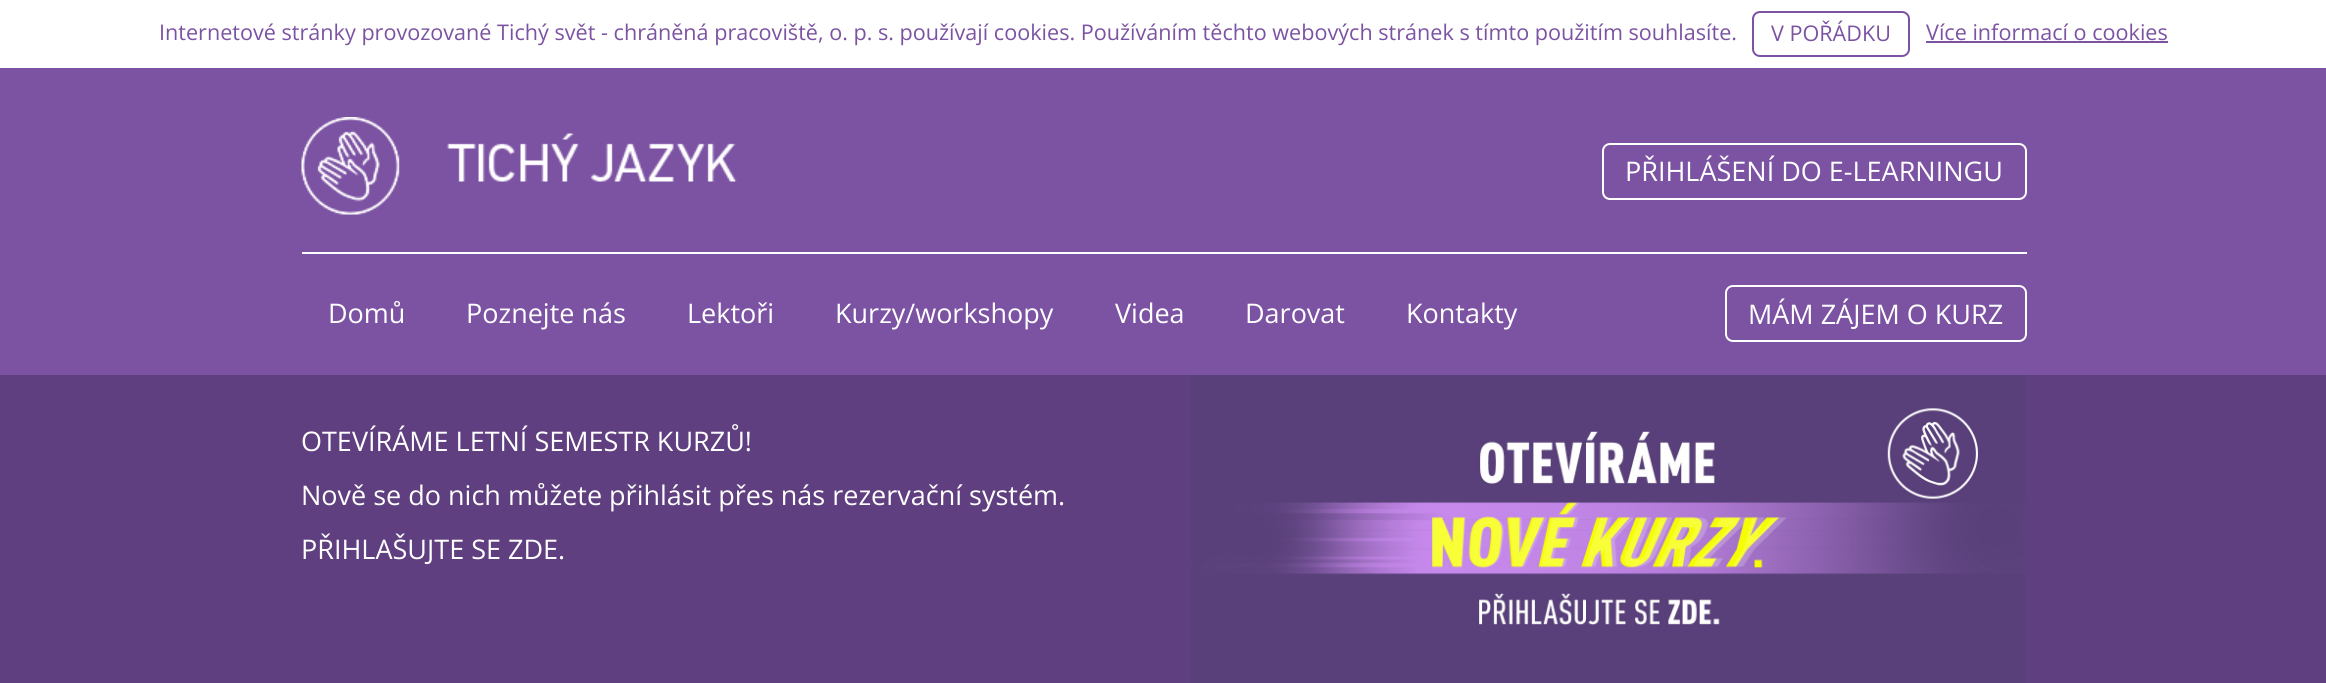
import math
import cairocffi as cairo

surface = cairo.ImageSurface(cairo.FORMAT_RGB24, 2326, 683)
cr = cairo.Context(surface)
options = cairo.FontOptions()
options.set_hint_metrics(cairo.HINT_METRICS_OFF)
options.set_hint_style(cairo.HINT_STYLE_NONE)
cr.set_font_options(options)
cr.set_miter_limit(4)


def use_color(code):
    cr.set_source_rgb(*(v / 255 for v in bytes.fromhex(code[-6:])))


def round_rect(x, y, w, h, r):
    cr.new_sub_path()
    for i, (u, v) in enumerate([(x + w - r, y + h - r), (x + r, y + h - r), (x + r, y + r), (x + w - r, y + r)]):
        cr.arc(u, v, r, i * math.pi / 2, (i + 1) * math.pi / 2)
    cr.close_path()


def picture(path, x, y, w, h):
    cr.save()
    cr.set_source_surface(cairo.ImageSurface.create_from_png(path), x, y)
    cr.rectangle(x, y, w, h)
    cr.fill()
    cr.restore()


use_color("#7c52a3")
cr.paint()
use_color("#ffffff")
cr.rectangle(0, 0, 2326, 68)
cr.fill()
cr.select_font_face("Open Sans")
cr.set_font_size(21.6)
use_color("#7c52a3")
cr.move_to(159, 40)
cr.show_text("Internetové stránky provozované Tichý svět - chráněná pracoviště, o. p. s. používají cookies. Používáním těchto webových stránek s tímto použitím souhlasíte.")
round_rect(1753, 12, 156, 44, 7)
cr.stroke()
cr.move_to(1771, 41)
cr.show_text("V POŘÁDKU")
cr.move_to(1926, 40)
cr.show_text("Více informací o cookies")
cr.rectangle(1926, 41, 242, 2)
cr.fill()
use_color("#ffffff")
cr.rectangle(302, 252, 1725, 2)
cr.fill()
picture("img1.png", 301, 117, 436, 98)
round_rect(1603, 144, 423, 55, 7)
cr.stroke()
cr.set_font_size(27)
cr.move_to(1625, 181)
cr.show_text("PŘIHLÁŠENÍ DO E-LEARNINGU")
cr.move_to(328, 323)
cr.show_text("Domů")
cr.move_to(466, 323)
cr.show_text("Poznejte nás")
cr.move_to(687, 323)
cr.show_text("Lektoři")
cr.move_to(835, 323)
cr.show_text("Kurzy/workshopy")
cr.move_to(1115, 323)
cr.show_text("Videa")
cr.move_to(1245, 323)
cr.show_text("Darovat")
cr.move_to(1406, 323)
cr.show_text("Kontakty")
round_rect(1726, 286, 300, 55, 7)
cr.stroke()
cr.move_to(1748, 324)
cr.show_text("MÁM ZÁJEM O KURZ")
use_color("#5f3f7f")
cr.rectangle(0, 375, 2326, 308)
cr.fill()
use_color("#ffffff")
cr.move_to(301, 451)
cr.show_text("OTEVÍRÁME LETNÍ SEMESTR KURZŮ!")
cr.move_to(301, 505)
cr.show_text("Nově se do nich můžete přihlásit přes nás rezervační systém.")
cr.move_to(301, 559)
cr.show_text("PŘIHLAŠUJTE SE ZDE.")
picture("img2.png", 1191, 375, 834, 308)
surface.write_to_png("result.png")
